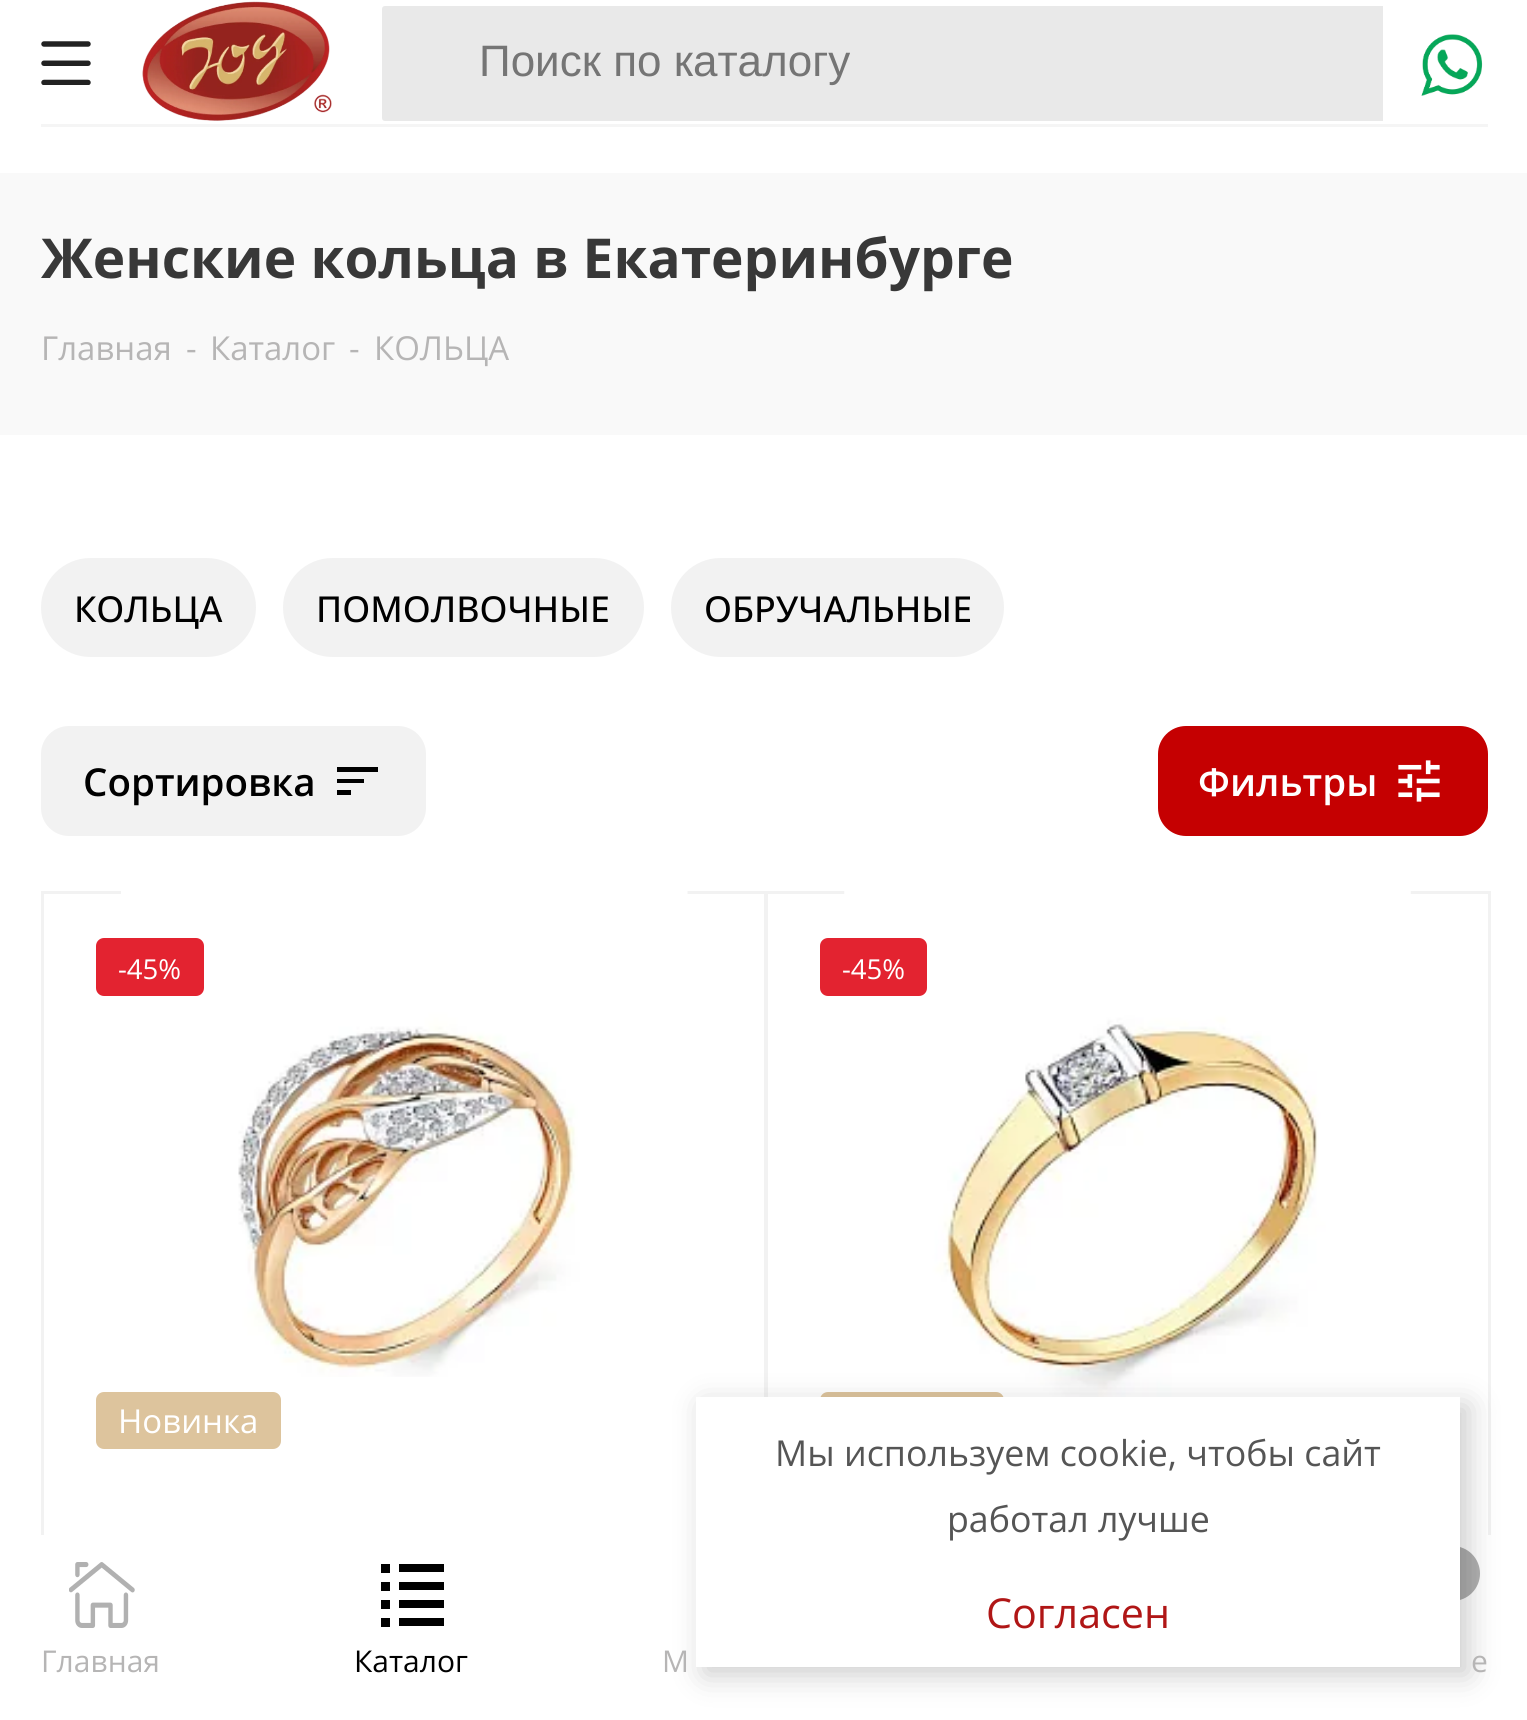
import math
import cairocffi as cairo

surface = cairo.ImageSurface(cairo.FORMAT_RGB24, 1527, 1720)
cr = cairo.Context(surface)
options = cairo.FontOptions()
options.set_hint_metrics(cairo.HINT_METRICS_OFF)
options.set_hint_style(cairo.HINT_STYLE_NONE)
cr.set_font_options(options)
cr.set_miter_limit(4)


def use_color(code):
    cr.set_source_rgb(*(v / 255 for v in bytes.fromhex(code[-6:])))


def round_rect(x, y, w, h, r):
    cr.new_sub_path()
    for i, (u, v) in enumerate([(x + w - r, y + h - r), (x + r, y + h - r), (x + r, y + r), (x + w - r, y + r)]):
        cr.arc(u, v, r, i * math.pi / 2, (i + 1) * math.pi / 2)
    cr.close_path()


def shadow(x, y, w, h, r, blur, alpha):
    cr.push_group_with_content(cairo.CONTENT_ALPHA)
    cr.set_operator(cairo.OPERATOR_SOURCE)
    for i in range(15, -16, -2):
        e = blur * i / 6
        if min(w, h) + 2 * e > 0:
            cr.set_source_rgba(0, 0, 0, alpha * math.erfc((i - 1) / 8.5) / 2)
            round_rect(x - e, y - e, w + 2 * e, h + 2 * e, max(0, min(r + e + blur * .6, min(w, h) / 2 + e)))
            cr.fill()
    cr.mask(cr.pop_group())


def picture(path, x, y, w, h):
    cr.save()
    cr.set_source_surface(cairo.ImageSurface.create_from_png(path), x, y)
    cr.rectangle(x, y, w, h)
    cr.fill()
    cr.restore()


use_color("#ffffff")
cr.paint()
use_color("#f5f5f5")
cr.rectangle(41, 124, 1447, 3)
cr.fill()
picture("img1.png", 41, 41, 50, 44)
picture("img2.png", 142, 1, 190, 120)
use_color("#e9e9e9")
cr.new_path()
cr.move_to(385, 7.5)
cr.line_to(1381.5, 7.5)
cr.line_to(1381.5, 119.5)
cr.line_to(385, 119.5)
cr.curve_to(384, 119.5, 383.5, 119, 383.5, 118)
cr.line_to(383.5, 9)
cr.curve_to(383.5, 8, 384, 7.5, 385, 7.5)
cr.close_path()
cr.fill_preserve()
cr.set_line_width(3)
cr.stroke()
cr.select_font_face("Liberation Sans")
cr.set_font_size(44)
use_color("#757575")
cr.move_to(479, 76)
cr.show_text("Поиск по каталогу")
picture("img3.png", 1421, 34, 62, 62)
use_color("#f9f9f9")
cr.rectangle(0, 173, 1527, 262)
cr.fill()
cr.select_font_face("Open Sans", cairo.FONT_SLANT_NORMAL, cairo.FONT_WEIGHT_BOLD)
cr.set_font_size(55)
use_color("#383838")
cr.move_to(41, 278)
cr.show_text("Женские кольца в Екатеринбурге")
cr.select_font_face("Open Sans")
cr.set_font_size(33)
use_color("#b6b5b5")
cr.move_to(41, 360)
cr.show_text("Главная")
cr.move_to(186, 360)
cr.show_text("-")
cr.move_to(210, 360)
cr.show_text("Каталог")
cr.move_to(349, 360)
cr.show_text("-")
cr.move_to(374, 360)
cr.show_text("КОЛЬЦА")
use_color("#f2f2f2")
round_rect(41, 558, 215, 99, 49.5)
cr.fill()
cr.select_font_face("Open Sans Medium")
cr.set_font_size(35.75)
use_color("#000000")
cr.move_to(74, 622)
cr.show_text("КОЛЬЦА")
use_color("#f2f2f2")
round_rect(283, 558, 361, 99, 49.5)
cr.fill()
use_color("#000000")
cr.move_to(316, 622)
cr.show_text("ПОМОЛВОЧНЫЕ")
use_color("#f2f2f2")
round_rect(671, 558, 333, 99, 49.5)
cr.fill()
use_color("#000000")
cr.move_to(704, 622)
cr.show_text("ОБРУЧАЛЬНЫЕ")
use_color("#f2f2f2")
round_rect(41, 726, 385, 110, 28)
cr.fill()
cr.select_font_face("Open Sans SemiBold")
cr.set_font_size(38.5)
use_color("#000000")
cr.move_to(83, 796)
cr.show_text("Сортировка")
cr.new_path()
cr.move_to(337, 795)
cr.line_to(337, 790)
cr.line_to(351, 790)
cr.line_to(351, 795)
cr.close_path()
cr.move_to(337, 783)
cr.line_to(337, 779)
cr.line_to(364, 779)
cr.line_to(364, 783)
cr.close_path()
cr.move_to(337, 772)
cr.line_to(337, 767)
cr.line_to(378, 767)
cr.line_to(378, 772)
cr.close_path()
cr.fill()
use_color("#c50001")
round_rect(1158, 726, 330, 110, 28)
cr.fill()
use_color("#ffffff")
cr.move_to(1198, 796)
cr.show_text("Фильтры")
picture("img4.png", 1398, 760, 42, 42)
cr.rectangle(42.5, 892.5, 723, 778)
use_color("#f2f2f2")
cr.stroke()
picture("img5.png", 121, 891, 567, 486)
use_color("#e32330")
round_rect(96, 938, 108, 58, 8)
cr.fill()
cr.select_font_face("Open Sans")
cr.set_font_size(27.5)
use_color("#ffffff")
cr.move_to(118, 979)
cr.show_text("-45%")
use_color("#ddc49d")
round_rect(96, 1392, 185, 57, 8)
cr.fill()
cr.set_font_size(33)
use_color("#ffffff")
cr.move_to(118, 1433)
cr.show_text("Новинка")
cr.rectangle(766.5, 892.5, 723, 778)
use_color("#f2f2f2")
cr.stroke()
picture("img6.png", 844, 891, 567, 506)
use_color("#ddc49d")
round_rect(820, 1392, 184, 57, 8)
cr.fill()
use_color("#e32330")
round_rect(820, 938, 107, 58, 8)
cr.fill()
cr.set_font_size(27.5)
use_color("#ffffff")
cr.move_to(842, 979)
cr.show_text("-45%")
cr.rectangle(41, 1535, 1450, 137)
cr.fill()
use_color("#b0b0b0")
cr.arc(1452.5, 1573.5, 27.5, 0, 2 * math.pi)
cr.fill()
use_color("#000000")
shadow(704, 1405, 765, 270, 0, 15, 0.2)
use_color("#ffffff")
cr.rectangle(696, 1397, 764, 270)
cr.fill()
cr.set_font_size(35.75)
use_color("#555555")
cr.move_to(775, 1466)
cr.show_text("Мы используем cookie, чтобы сайт")
cr.move_to(947, 1532)
cr.show_text("работал лучше")
cr.set_font_size(41.25)
use_color("#b01616")
cr.move_to(986, 1628)
cr.show_text("Согласен")
picture("img7.png", 69, 1562, 66, 66)
cr.set_font_size(30)
use_color("#b6b5b5")
cr.move_to(41, 1672)
cr.show_text("Главная")
use_color("#000000")
cr.rectangle(381, 1564, 9, 9)
cr.fill()
cr.rectangle(381, 1582, 9, 9)
cr.fill()
cr.rectangle(381, 1600, 9, 9)
cr.fill()
cr.rectangle(381, 1618, 9, 9)
cr.fill()
cr.rectangle(399, 1564, 45, 8)
cr.fill()
cr.rectangle(399, 1582, 45, 8)
cr.fill()
cr.rectangle(399, 1600, 45, 8)
cr.fill()
cr.rectangle(399, 1618, 45, 8)
cr.fill()
cr.move_to(354, 1672)
cr.show_text("Каталог")
use_color("#b6b5b5")
cr.move_to(662, 1672)
cr.show_text("М")
cr.move_to(1471, 1672)
cr.show_text("е")
surface.write_to_png("result.png")
